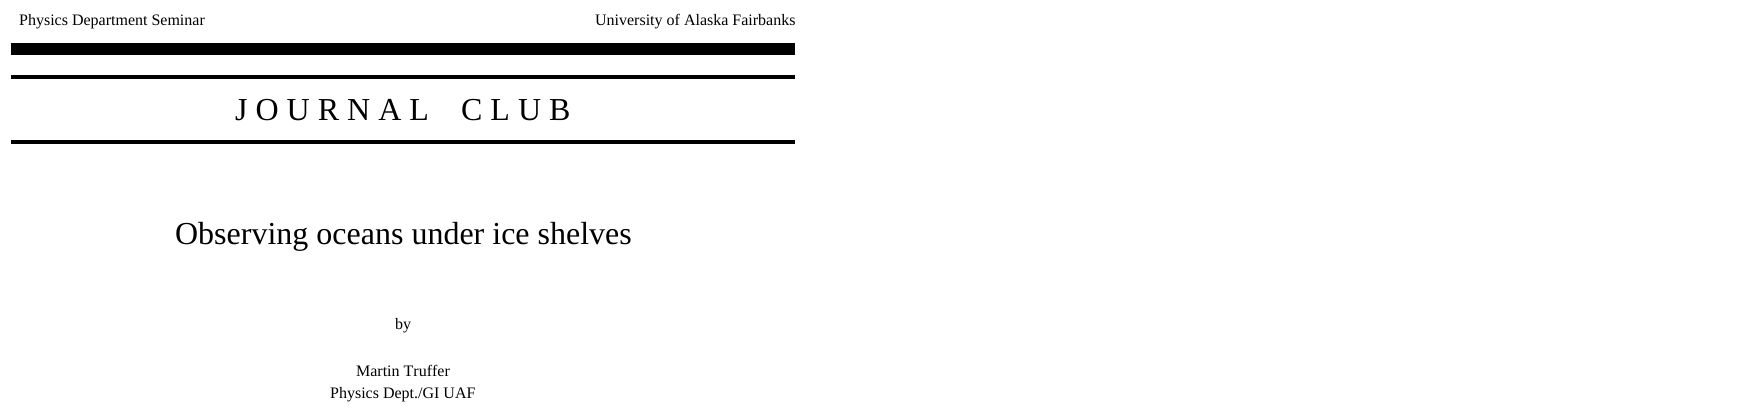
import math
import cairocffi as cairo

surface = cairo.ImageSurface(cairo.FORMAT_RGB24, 1738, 408)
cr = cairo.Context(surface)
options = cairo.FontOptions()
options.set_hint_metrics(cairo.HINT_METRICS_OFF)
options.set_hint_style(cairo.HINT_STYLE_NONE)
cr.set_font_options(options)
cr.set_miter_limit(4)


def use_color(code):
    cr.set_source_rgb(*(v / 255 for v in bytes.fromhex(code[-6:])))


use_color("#ffffff")
cr.paint()
cr.select_font_face("Liberation Serif")
cr.set_font_size(16)
use_color("#000000")
cr.move_to(19, 25)
cr.show_text("Physics Department Seminar")
cr.move_to(595, 25)
cr.show_text("University of Alaska Fairbanks")
cr.rectangle(11, 43, 784, 12)
cr.fill()
cr.rectangle(11, 75, 784, 4)
cr.fill()
cr.set_font_size(32)
cr.move_to(235, 120)
cr.show_text("J O U R N A L")
cr.move_to(461, 120)
cr.show_text("C L U B")
cr.rectangle(11, 140, 784, 4)
cr.fill()
cr.move_to(175, 244)
cr.show_text("Observing oceans under ice shelves")
cr.set_font_size(16)
cr.move_to(395, 329)
cr.show_text("by")
cr.move_to(356, 376)
cr.show_text("Martin Truffer")
cr.move_to(330, 398)
cr.show_text("Physics Dept./GI UAF")
surface.write_to_png("result.png")
